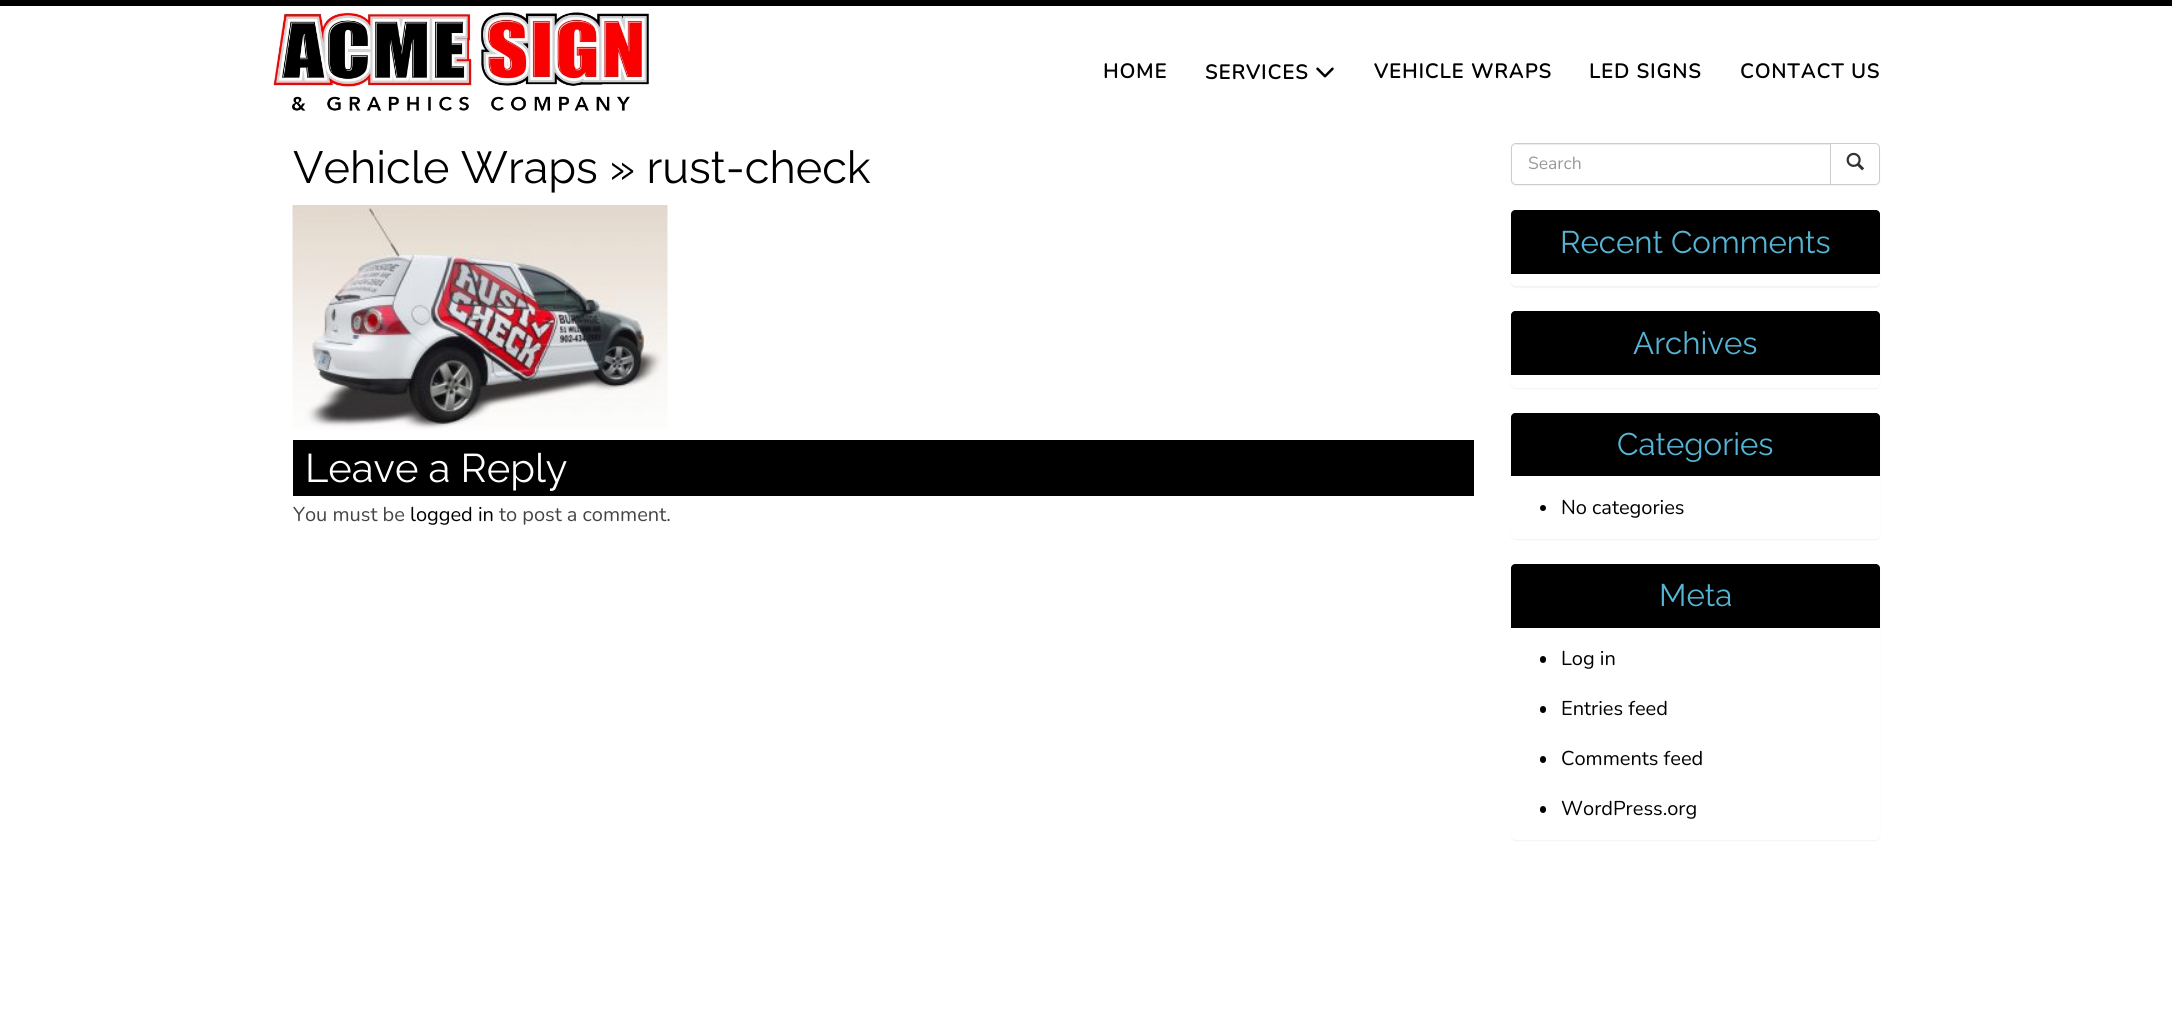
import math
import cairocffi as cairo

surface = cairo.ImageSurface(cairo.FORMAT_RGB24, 2172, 1012)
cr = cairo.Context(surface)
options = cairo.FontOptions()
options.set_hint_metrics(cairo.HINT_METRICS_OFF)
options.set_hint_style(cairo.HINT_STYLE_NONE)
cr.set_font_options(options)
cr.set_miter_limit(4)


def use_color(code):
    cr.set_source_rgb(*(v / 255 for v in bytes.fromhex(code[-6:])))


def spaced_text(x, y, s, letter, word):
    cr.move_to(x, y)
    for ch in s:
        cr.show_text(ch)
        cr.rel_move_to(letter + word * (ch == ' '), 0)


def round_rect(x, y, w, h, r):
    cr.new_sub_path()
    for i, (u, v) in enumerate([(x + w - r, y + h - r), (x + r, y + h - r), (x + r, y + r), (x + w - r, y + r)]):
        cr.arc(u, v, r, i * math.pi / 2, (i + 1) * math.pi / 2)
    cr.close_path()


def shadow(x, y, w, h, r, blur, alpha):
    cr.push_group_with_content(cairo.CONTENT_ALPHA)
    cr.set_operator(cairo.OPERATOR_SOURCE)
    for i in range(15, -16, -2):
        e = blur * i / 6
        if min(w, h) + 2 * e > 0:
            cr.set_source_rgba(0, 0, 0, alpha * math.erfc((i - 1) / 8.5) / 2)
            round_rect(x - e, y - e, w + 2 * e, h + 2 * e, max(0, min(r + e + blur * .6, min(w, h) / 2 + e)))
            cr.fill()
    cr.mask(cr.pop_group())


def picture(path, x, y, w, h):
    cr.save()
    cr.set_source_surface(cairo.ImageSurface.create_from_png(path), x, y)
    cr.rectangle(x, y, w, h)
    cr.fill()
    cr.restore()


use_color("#ffffff")
cr.paint()
use_color("#000000")
cr.rectangle(0, 0, 2172, 6)
cr.fill()
picture("img1.png", 273, 12, 376, 99)
cr.select_font_face("Nunito", cairo.FONT_SLANT_NORMAL, cairo.FONT_WEIGHT_BOLD)
cr.set_font_size(20)
spaced_text(1103, 78, "HOME", 1.25, 0)
spaced_text(1205, 79, "SERVICES", 1.25, 0)
picture("img2.png", 1316, 67, 18, 11)
spaced_text(1374, 78, "VEHICLE WRAPS", 1.25, 0)
spaced_text(1589, 78, "LED SIGNS", 1.25, 0)
spaced_text(1740, 78, "CONTACT US", 1.25, 0)
cr.select_font_face("Raleway Thin")
cr.set_font_size(45)
cr.move_to(293, 183)
cr.show_text("Vehicle Wraps » rust-check")
picture("img3.png", 292, 205, 376, 225)
cr.rectangle(293, 440, 1181, 56)
cr.fill()
cr.set_font_size(40)
use_color("#ffffff")
cr.move_to(305, 482)
cr.show_text("Leave a Reply")
cr.select_font_face("Nunito ExtraLight")
cr.set_font_size(20)
use_color("#474445")
cr.move_to(293, 521)
cr.show_text("You must be")
use_color("#000000")
cr.move_to(410, 521)
cr.show_text("logged in")
use_color("#474445")
cr.move_to(499, 521)
cr.show_text("to post a comment.")
use_color("#000000")
shadow(1511, 144, 369, 42, 5, 0.5, 0.05)
use_color("#ffffff")
cr.new_path()
cr.move_to(1516, 143)
cr.line_to(1831, 143)
cr.line_to(1831, 185)
cr.line_to(1516, 185)
cr.curve_to(1513, 185, 1511, 183, 1511, 180)
cr.line_to(1511, 148)
cr.curve_to(1511, 145, 1513, 143, 1516, 143)
cr.close_path()
cr.fill()
use_color("#ececec")
cr.new_path()
cr.move_to(1516, 145)
cr.line_to(1830, 145)
cr.line_to(1830, 144)
cr.line_to(1517, 144)
cr.curve_to(1516, 144, 1514, 145, 1514, 146)
cr.close_path()
cr.fill()
cr.new_path()
cr.move_to(1516, 143.5)
cr.line_to(1830.5, 143.5)
cr.line_to(1830.5, 184.5)
cr.line_to(1516, 184.5)
cr.curve_to(1513.5, 184.5, 1511.5, 182.5, 1511.5, 180)
cr.line_to(1511.5, 148)
cr.curve_to(1511.5, 145.5, 1513.5, 143.5, 1516, 143.5)
cr.close_path()
use_color("#cccccc")
cr.set_line_width(1)
cr.stroke()
cr.set_font_size(17.5)
use_color("#999999")
cr.move_to(1528, 169)
cr.show_text("Search")
use_color("#ffffff")
cr.new_path()
cr.move_to(1830.5, 143.5)
cr.line_to(1875, 143.5)
cr.curve_to(1877.5, 143.5, 1879.5, 145.5, 1879.5, 148)
cr.line_to(1879.5, 180)
cr.curve_to(1879.5, 182.5, 1877.5, 184.5, 1875, 184.5)
cr.line_to(1830.5, 184.5)
cr.close_path()
cr.fill_preserve()
use_color("#cccccc")
cr.stroke()
picture("img4.png", 1846, 152, 18, 19)
use_color("#000000")
shadow(1511, 211, 369, 77, 5, 0.5, 0.05)
use_color("#ffffff")
round_rect(1511, 210, 369, 76, 5)
cr.fill()
use_color("#000000")
cr.new_path()
cr.move_to(1515, 210)
cr.line_to(1876, 210)
cr.curve_to(1878, 210, 1880, 212, 1880, 214)
cr.line_to(1880, 274)
cr.line_to(1511, 274)
cr.line_to(1511, 214)
cr.curve_to(1511, 212, 1513, 210, 1515, 210)
cr.close_path()
cr.fill()
cr.select_font_face("Raleway Thin")
cr.set_font_size(31.25)
use_color("#55b4d4")
cr.move_to(1560, 253)
cr.show_text("Recent Comments")
use_color("#000000")
shadow(1511, 313, 369, 76, 5, 0.5, 0.05)
use_color("#ffffff")
round_rect(1511, 311, 369, 77, 5)
cr.fill()
use_color("#000000")
cr.new_path()
cr.move_to(1515, 311)
cr.line_to(1876, 311)
cr.curve_to(1878, 311, 1880, 313, 1880, 315)
cr.line_to(1880, 375)
cr.line_to(1511, 375)
cr.line_to(1511, 315)
cr.curve_to(1511, 313, 1513, 311, 1515, 311)
cr.close_path()
cr.fill()
use_color("#55b4d4")
cr.move_to(1633, 354)
cr.show_text("Archives")
use_color("#000000")
shadow(1511, 414, 369, 126, 5, 0.5, 0.05)
use_color("#ffffff")
round_rect(1511, 413, 369, 126, 5)
cr.fill()
use_color("#000000")
cr.new_path()
cr.move_to(1515, 413)
cr.line_to(1876, 413)
cr.curve_to(1878, 413, 1880, 415, 1880, 417)
cr.line_to(1880, 476)
cr.line_to(1511, 476)
cr.line_to(1511, 417)
cr.curve_to(1511, 415, 1513, 413, 1515, 413)
cr.close_path()
cr.fill()
use_color("#55b4d4")
cr.move_to(1617, 455)
cr.show_text("Categories")
use_color("#000000")
cr.new_path()
cr.arc(1543, 508, 3, 0, 2 * math.pi)
cr.fill()
cr.select_font_face("Nunito ExtraLight")
cr.set_font_size(20)
cr.move_to(1561, 514)
cr.show_text("No categories")
use_color("#000000")
shadow(1511, 565, 369, 276, 5, 0.5, 0.05)
use_color("#ffffff")
round_rect(1511, 564, 369, 276, 5)
cr.fill()
use_color("#000000")
cr.new_path()
cr.move_to(1515, 564)
cr.line_to(1876, 564)
cr.curve_to(1878, 564, 1880, 566, 1880, 568)
cr.line_to(1880, 628)
cr.line_to(1511, 628)
cr.line_to(1511, 568)
cr.curve_to(1511, 566, 1513, 564, 1515, 564)
cr.close_path()
cr.fill()
cr.select_font_face("Raleway Thin")
cr.set_font_size(31.25)
use_color("#55b4d4")
cr.move_to(1659, 606)
cr.show_text("Meta")
use_color("#000000")
round_rect(1540, 656, 6, 7, 3)
cr.fill()
cr.select_font_face("Nunito ExtraLight")
cr.set_font_size(20)
cr.move_to(1561, 665)
cr.show_text("Log in")
round_rect(1540, 706, 6, 7, 3)
cr.fill()
cr.move_to(1561, 715)
cr.show_text("Entries feed")
round_rect(1540, 756, 6, 7, 3)
cr.fill()
cr.move_to(1561, 765)
cr.show_text("Comments feed")
round_rect(1540, 806, 6, 7, 3)
cr.fill()
cr.move_to(1561, 815)
cr.show_text("WordPress.org")
surface.write_to_png("result.png")
